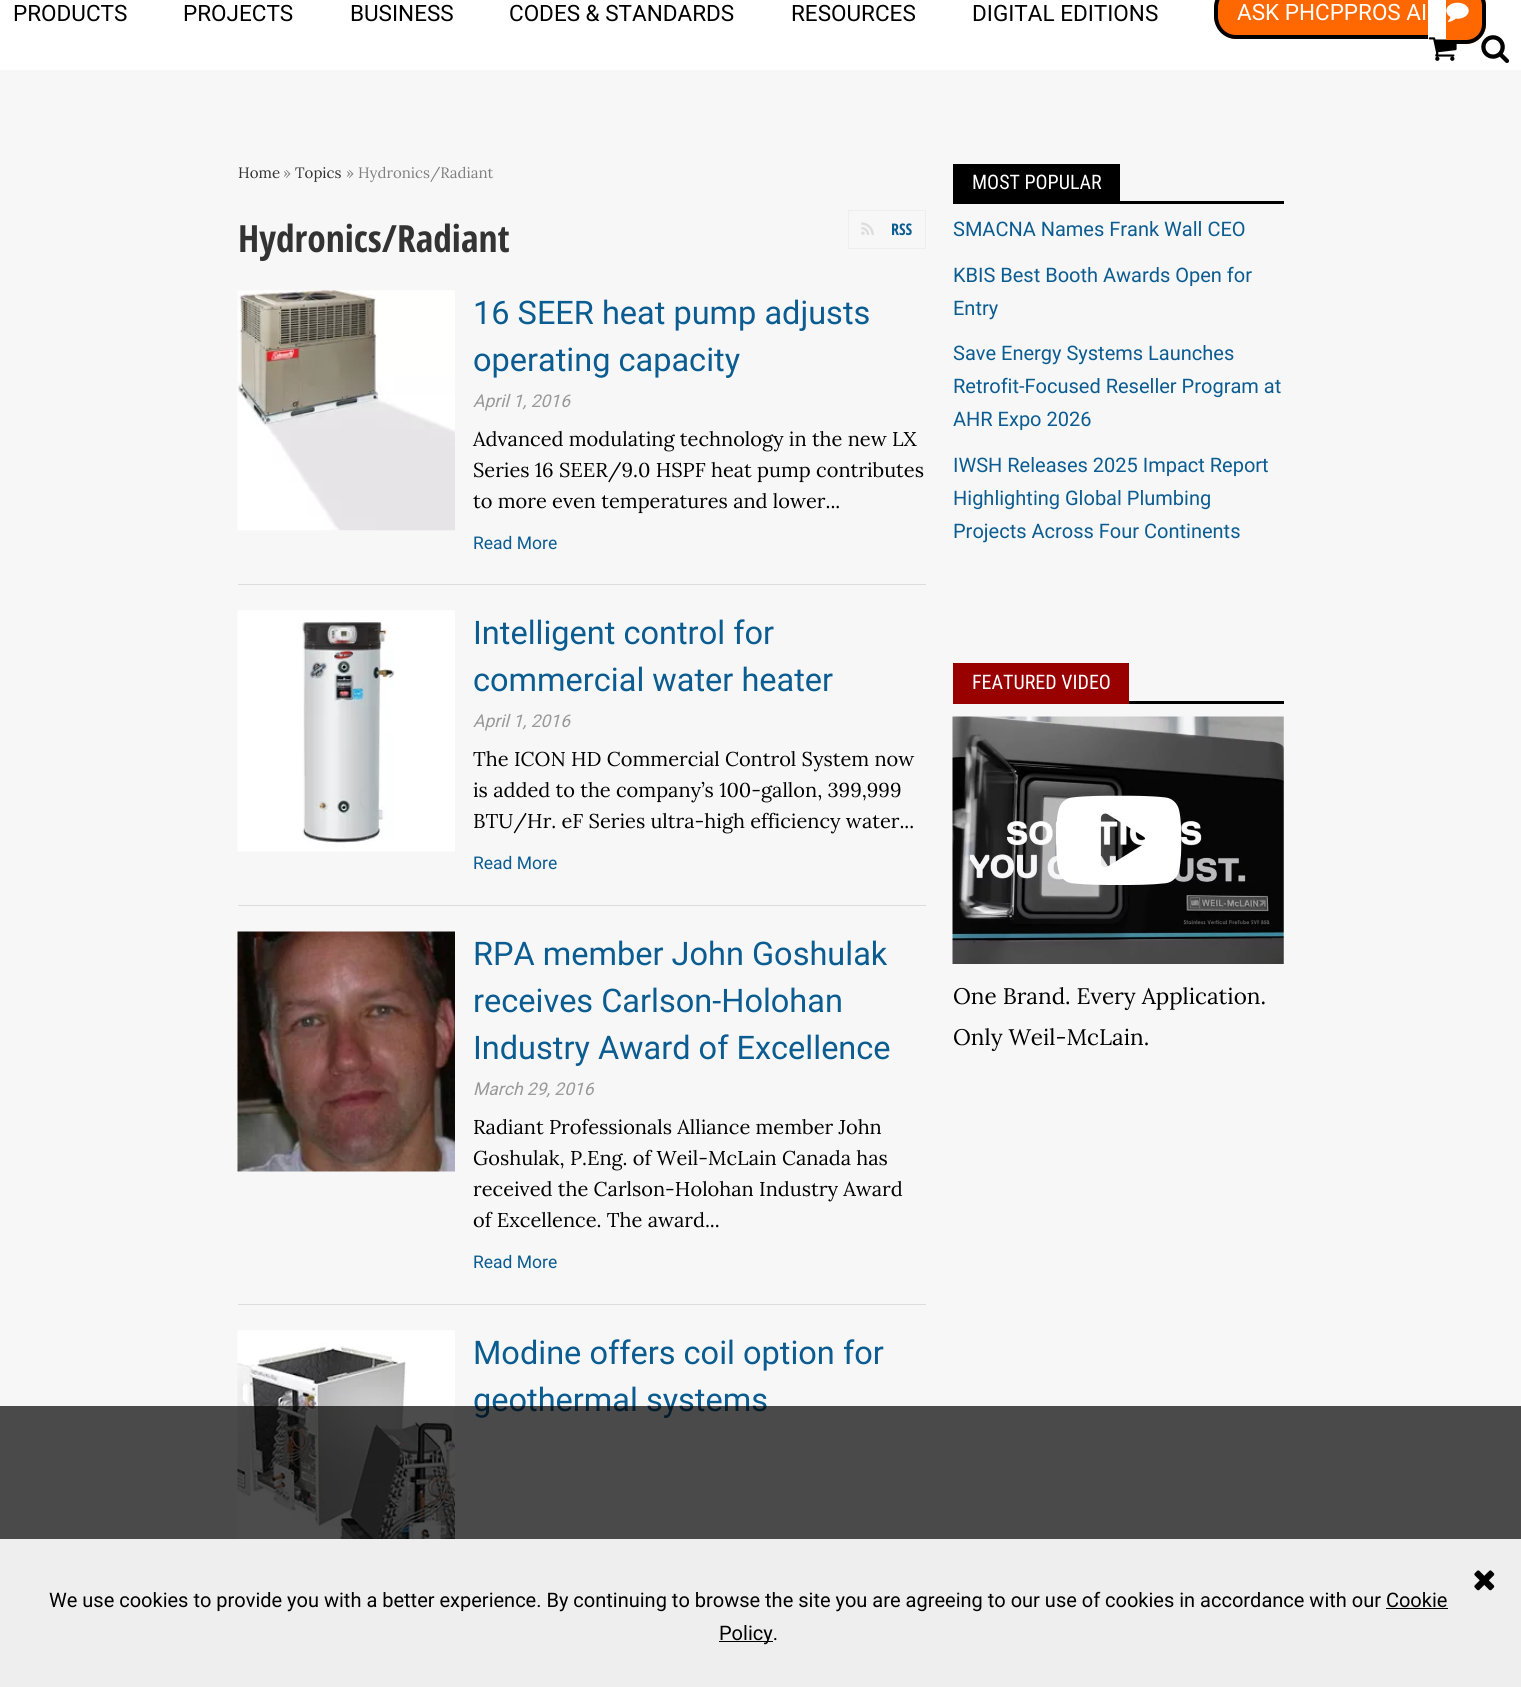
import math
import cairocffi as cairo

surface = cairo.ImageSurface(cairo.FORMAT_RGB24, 1521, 1687)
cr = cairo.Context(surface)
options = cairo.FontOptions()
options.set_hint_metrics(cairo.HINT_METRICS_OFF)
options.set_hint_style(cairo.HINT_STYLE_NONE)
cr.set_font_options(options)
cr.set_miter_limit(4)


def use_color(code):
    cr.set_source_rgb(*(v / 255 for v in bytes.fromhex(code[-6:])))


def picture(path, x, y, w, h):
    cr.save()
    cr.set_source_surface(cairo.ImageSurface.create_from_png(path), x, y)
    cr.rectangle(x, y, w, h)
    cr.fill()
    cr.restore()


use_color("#f7f7f7")
cr.paint()
use_color("#ffffff")
cr.rectangle(0, 0, 1521, 70)
cr.fill()
cr.select_font_face("Roboto")
cr.set_font_size(22.5)
use_color("#000000")
cr.move_to(13, 21)
cr.show_text("PRODUCTS")
cr.move_to(183, 21)
cr.show_text("PROJECTS")
cr.move_to(350, 21)
cr.show_text("BUSINESS")
cr.move_to(509, 21)
cr.show_text("CODES & STANDARDS")
cr.move_to(791, 21)
cr.show_text("RESOURCES")
cr.move_to(972, 21)
cr.show_text("DIGITAL EDITIONS")
use_color("#ff6700")
cr.new_path()
cr.move_to(1237, -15)
cr.line_to(1428, -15)
cr.line_to(1428, 39)
cr.line_to(1237, 39)
cr.curve_to(1224.5, 39, 1214, 28.5, 1214, 16)
cr.line_to(1214, 8)
cr.curve_to(1214, -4.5, 1224.5, -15, 1237, -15)
cr.close_path()
cr.fill()
use_color("#000000")
cr.set_fill_rule(cairo.FILL_RULE_EVEN_ODD)
cr.new_path()
cr.move_to(1236, -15)
cr.line_to(1428, -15)
cr.line_to(1428, 39)
cr.line_to(1236, 39)
cr.curve_to(1224, 39, 1214, 29, 1214, 16)
cr.line_to(1214, 8)
cr.curve_to(1214, -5, 1224, -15, 1236, -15)
cr.close_path()
cr.move_to(1236, -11)
cr.line_to(1428, -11)
cr.line_to(1428, 35)
cr.line_to(1236, 35)
cr.curve_to(1226, 35, 1218, 27, 1218, 16)
cr.line_to(1218, 8)
cr.curve_to(1218, -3, 1226, -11, 1236, -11)
cr.close_path()
cr.fill()
picture("img2.png", 1428, 37, 29, 24)
picture("img3.png", 1481, 35, 29, 28)
use_color("#ff6700")
cr.new_path()
cr.move_to(1446, -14)
cr.line_to(1466, -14)
cr.curve_to(1477, -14, 1486, -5, 1486, 6)
cr.line_to(1486, 24)
cr.curve_to(1486, 35, 1477, 44, 1466, 44)
cr.line_to(1446, 44)
cr.close_path()
cr.fill()
use_color("#000000")
cr.new_path()
cr.move_to(1446, -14)
cr.line_to(1466, -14)
cr.curve_to(1477, -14, 1486, -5, 1486, 6)
cr.line_to(1486, 24)
cr.curve_to(1486, 35, 1477, 44, 1466, 44)
cr.line_to(1446, 44)
cr.close_path()
cr.move_to(1446, -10)
cr.line_to(1466, -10)
cr.curve_to(1475, -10, 1482, -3, 1482, 6)
cr.line_to(1482, 24)
cr.curve_to(1482, 33, 1475, 40, 1466, 40)
cr.line_to(1446, 40)
cr.close_path()
cr.fill()
use_color("#ffffff")
cr.move_to(1237, 20)
cr.show_text("ASK PHCPPROS AI")
picture("img1.png", 1446, 2, 23, 20)
cr.select_font_face("Lora")
cr.set_font_size(15)
use_color("#333333")
cr.move_to(238, 178)
cr.show_text("Home")
use_color("#808080")
cr.move_to(283, 178)
cr.show_text("»")
use_color("#333333")
cr.move_to(295, 178)
cr.show_text("Topics")
use_color("#808080")
cr.move_to(346, 178)
cr.show_text("» Hydronics/Radiant")
cr.select_font_face("Open Sans Condensed", cairo.FONT_SLANT_NORMAL, cairo.FONT_WEIGHT_BOLD)
cr.set_font_size(37.5)
use_color("#333333")
cr.move_to(238, 252)
cr.show_text("Hydronics/Radiant")
cr.rectangle(848.5, 210.5, 77, 38)
use_color("#eeeeee")
cr.set_line_width(1)
cr.stroke()
picture("img4.png", 861, 222, 13, 13)
cr.set_font_size(16)
use_color("#0b5c91")
cr.move_to(891, 235)
cr.show_text("RSS")
use_color("#dddddd")
cr.rectangle(238, 584, 688, 1)
cr.fill()
picture("img5.png", 237, 290, 218, 241)
cr.select_font_face("Roboto")
cr.set_font_size(32.5)
use_color("#0b5c91")
cr.move_to(473, 324)
cr.show_text("16 SEER heat pump adjusts")
cr.move_to(473, 371)
cr.show_text("operating capacity")
cr.select_font_face("Roboto", cairo.FONT_SLANT_ITALIC)
cr.set_font_size(17.5)
use_color("#999999")
cr.move_to(473, 407)
cr.show_text("April 1, 2016")
cr.select_font_face("Lora")
cr.set_font_size(20)
use_color("#000000")
cr.move_to(473, 446)
cr.show_text("Advanced modulating technology in the new LX")
cr.move_to(473, 477)
cr.show_text("Series 16 SEER/9.0 HSPF heat pump contributes")
cr.move_to(473, 508)
cr.show_text("to more even temperatures and lower...")
cr.select_font_face("Roboto")
cr.set_font_size(17.5)
use_color("#0b5c91")
cr.move_to(473, 549)
cr.show_text("Read More")
use_color("#dddddd")
cr.rectangle(238, 905, 688, 1)
cr.fill()
picture("img6.png", 237, 610, 218, 242)
cr.set_font_size(32.5)
use_color("#0b5c91")
cr.move_to(473, 644)
cr.show_text("Intelligent control for")
cr.move_to(473, 691)
cr.show_text("commercial water heater")
cr.select_font_face("Roboto", cairo.FONT_SLANT_ITALIC)
cr.set_font_size(17.5)
use_color("#999999")
cr.move_to(473, 727)
cr.show_text("April 1, 2016")
cr.select_font_face("Lora")
cr.set_font_size(20)
use_color("#000000")
cr.move_to(473, 766)
cr.show_text("The ICON HD Commercial Control System now")
cr.move_to(473, 797)
cr.show_text("is added to the company’s 100-gallon, 399,999")
cr.move_to(473, 828)
cr.show_text("BTU/Hr. eF Series ultra-high efficiency water...")
cr.select_font_face("Roboto")
cr.set_font_size(17.5)
use_color("#0b5c91")
cr.move_to(473, 869)
cr.show_text("Read More")
use_color("#dddddd")
cr.rectangle(238, 1304, 688, 1)
cr.fill()
picture("img7.png", 237, 931, 218, 241)
cr.set_font_size(32.5)
use_color("#0b5c91")
cr.move_to(473, 965)
cr.show_text("RPA member John Goshulak")
cr.move_to(473, 1012)
cr.show_text("receives Carlson-Holohan")
cr.move_to(473, 1059)
cr.show_text("Industry Award of Excellence")
cr.select_font_face("Roboto", cairo.FONT_SLANT_ITALIC)
cr.set_font_size(17.5)
use_color("#999999")
cr.move_to(473, 1095)
cr.show_text("March 29, 2016")
cr.select_font_face("Lora")
cr.set_font_size(20)
use_color("#000000")
cr.move_to(473, 1134)
cr.show_text("Radiant Professionals Alliance member John")
cr.move_to(473, 1165)
cr.show_text("Goshulak, P.Eng. of Weil-McLain Canada has")
cr.move_to(473, 1196)
cr.show_text("received the Carlson-Holohan Industry Award")
cr.move_to(473, 1227)
cr.show_text("of Excellence. The award...")
cr.select_font_face("Roboto")
cr.set_font_size(17.5)
use_color("#0b5c91")
cr.move_to(473, 1268)
cr.show_text("Read More")
picture("img8.png", 237, 1330, 218, 209)
cr.set_font_size(32.5)
cr.move_to(473, 1364)
cr.show_text("Modine offers coil option for")
cr.move_to(473, 1411)
cr.show_text("geothermal systems")
use_color("#000000")
cr.rectangle(953, 164, 167, 40)
cr.fill()
cr.select_font_face("Roboto Condensed")
cr.set_font_size(20)
use_color("#ffffff")
cr.move_to(972, 189)
cr.show_text("MOST POPULAR")
use_color("#000000")
cr.rectangle(1120, 201, 164, 3)
cr.fill()
cr.select_font_face("Roboto")
use_color("#0b5c91")
cr.move_to(953, 236)
cr.show_text("SMACNA Names Frank Wall CEO")
cr.move_to(953, 282)
cr.show_text("KBIS Best Booth Awards Open for")
cr.move_to(953, 315)
cr.show_text("Entry")
cr.move_to(953, 360)
cr.show_text("Save Energy Systems Launches")
cr.move_to(953, 393)
cr.show_text("Retrofit-Focused Reseller Program at")
cr.move_to(953, 426)
cr.show_text("AHR Expo 2026")
cr.move_to(953, 472)
cr.show_text("IWSH Releases 2025 Impact Report")
cr.move_to(953, 505)
cr.show_text("Highlighting Global Plumbing")
cr.move_to(953, 538)
cr.show_text("Projects Across Four Continents")
use_color("#000000")
cr.rectangle(1129, 701, 155, 3)
cr.fill()
use_color("#990000")
cr.rectangle(953, 663, 176, 41)
cr.fill()
cr.select_font_face("Roboto Condensed")
use_color("#ffffff")
cr.move_to(972, 689)
cr.show_text("FEATURED VIDEO")
picture("img9.png", 952, 716, 332, 248)
picture("img10.png", 1056, 795, 126, 90)
cr.select_font_face("Lora")
cr.set_font_size(22.5)
use_color("#000000")
cr.move_to(953, 1004)
cr.show_text("One Brand. Every Application.")
cr.move_to(953, 1045)
cr.show_text("Only Weil-McLain.")
cr.set_source_rgba(0, 0, 0, 0.7)
cr.rectangle(0, 1406, 1521, 133)
cr.fill()
use_color("#eeeeee")
cr.rectangle(0, 1539, 1521, 148)
cr.fill()
picture("img11.png", 1474, 1570, 21, 21)
cr.select_font_face("Roboto")
cr.set_font_size(20)
use_color("#000000")
cr.move_to(49, 1607)
cr.show_text("We use cookies to provide you with a better experience. By continuing to browse the site you are agreeing to our use of cookies in accordance with our Cookie")
cr.rectangle(719, 1641, 54, 1)
cr.fill()
cr.move_to(719, 1640)
cr.show_text("Policy.")
cr.rectangle(1386, 1608, 62, 1)
cr.fill()
surface.write_to_png("result.png")
